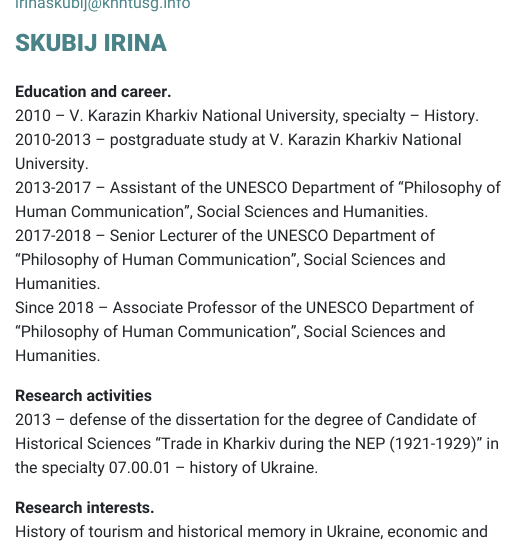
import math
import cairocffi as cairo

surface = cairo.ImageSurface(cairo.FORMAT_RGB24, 523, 549)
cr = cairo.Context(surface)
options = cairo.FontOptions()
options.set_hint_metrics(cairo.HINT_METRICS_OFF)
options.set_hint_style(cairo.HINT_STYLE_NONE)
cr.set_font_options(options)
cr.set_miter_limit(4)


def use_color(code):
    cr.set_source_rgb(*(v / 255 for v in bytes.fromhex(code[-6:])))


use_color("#ffffff")
cr.paint()
cr.select_font_face("Roboto")
cr.set_font_size(16)
use_color("#498387")
cr.move_to(15, 8)
cr.show_text("irinaskubij@khntusg.info")
cr.select_font_face("Roboto Black")
cr.set_font_size(24)
cr.move_to(15, 51)
cr.show_text("SKUBIJ IRINA")
cr.select_font_face("Roboto", cairo.FONT_SLANT_NORMAL, cairo.FONT_WEIGHT_BOLD)
cr.set_font_size(16)
use_color("#212529")
cr.move_to(15, 97)
cr.show_text("Education and career.")
cr.select_font_face("Roboto")
cr.move_to(15, 121)
cr.show_text("2010 – V. Karazin Kharkiv National University, specialty – History.")
cr.move_to(15, 145)
cr.show_text("2010-2013 – postgraduate study at V. Karazin Kharkiv National")
cr.move_to(15, 169)
cr.show_text("University.")
cr.move_to(15, 193)
cr.show_text("2013-2017 – Assistant of the UNESCO Department of “Philosophy of")
cr.move_to(15, 217)
cr.show_text("Human Communication”, Social Sciences and Humanities.")
cr.move_to(15, 241)
cr.show_text("2017-2018 – Senior Lecturer of the UNESCO Department of")
cr.move_to(15, 265)
cr.show_text("“Philosophy of Human Communication”, Social Sciences and")
cr.move_to(15, 289)
cr.show_text("Humanities.")
cr.move_to(15, 313)
cr.show_text("Since 2018 – Associate Professor of the UNESCO Department of")
cr.move_to(15, 337)
cr.show_text("“Philosophy of Human Communication”, Social Sciences and")
cr.move_to(15, 361)
cr.show_text("Humanities.")
cr.select_font_face("Roboto", cairo.FONT_SLANT_NORMAL, cairo.FONT_WEIGHT_BOLD)
cr.move_to(15, 401)
cr.show_text("Research activities")
cr.select_font_face("Roboto")
cr.move_to(15, 425)
cr.show_text("2013 – defense of the dissertation for the degree of Candidate of")
cr.move_to(15, 449)
cr.show_text("Historical Sciences “Trade in Kharkiv during the NEP (1921-1929)” in")
cr.move_to(15, 473)
cr.show_text("the specialty 07.00.01 – history of Ukraine.")
cr.select_font_face("Roboto", cairo.FONT_SLANT_NORMAL, cairo.FONT_WEIGHT_BOLD)
cr.move_to(15, 513)
cr.show_text("Research interests.")
cr.select_font_face("Roboto")
cr.move_to(15, 537)
cr.show_text("History of tourism and historical memory in Ukraine, economic and")
surface.write_to_png("result.png")
